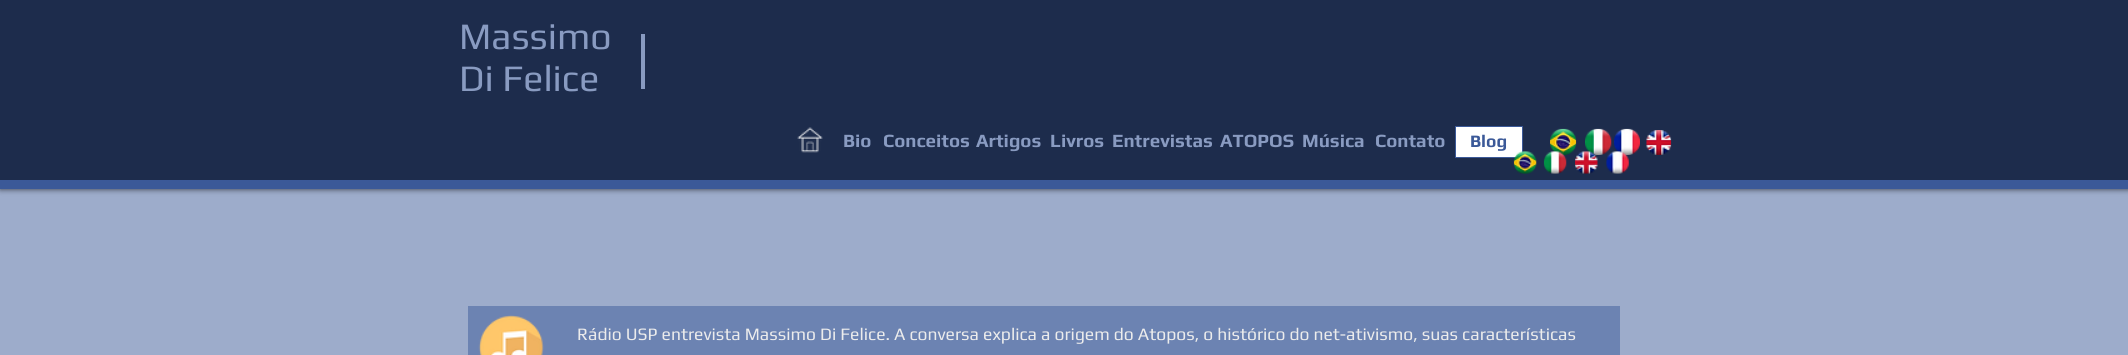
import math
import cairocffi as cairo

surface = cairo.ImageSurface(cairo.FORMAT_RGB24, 2128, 355)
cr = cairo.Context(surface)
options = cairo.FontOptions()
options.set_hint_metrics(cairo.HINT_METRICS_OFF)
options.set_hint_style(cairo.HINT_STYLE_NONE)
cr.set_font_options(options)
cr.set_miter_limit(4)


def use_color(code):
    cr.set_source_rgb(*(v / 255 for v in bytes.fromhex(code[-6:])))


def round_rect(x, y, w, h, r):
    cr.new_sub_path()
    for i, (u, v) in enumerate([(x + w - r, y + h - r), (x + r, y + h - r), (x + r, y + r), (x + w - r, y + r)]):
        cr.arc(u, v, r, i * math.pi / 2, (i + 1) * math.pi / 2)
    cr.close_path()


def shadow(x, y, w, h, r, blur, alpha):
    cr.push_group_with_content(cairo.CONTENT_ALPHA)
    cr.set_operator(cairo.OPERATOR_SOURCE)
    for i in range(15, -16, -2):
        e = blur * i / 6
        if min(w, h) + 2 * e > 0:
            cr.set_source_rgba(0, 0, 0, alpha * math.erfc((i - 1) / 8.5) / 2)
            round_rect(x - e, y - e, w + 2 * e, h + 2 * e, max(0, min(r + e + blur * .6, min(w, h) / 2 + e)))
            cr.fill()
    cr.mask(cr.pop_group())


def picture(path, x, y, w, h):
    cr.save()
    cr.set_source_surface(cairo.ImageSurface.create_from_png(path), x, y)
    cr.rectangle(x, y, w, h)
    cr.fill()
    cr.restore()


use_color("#9daccb")
cr.paint()
use_color("#000000")
shadow(0, 0, 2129, 189, 0, 3, 0.7)
use_color("#1d2c4c")
cr.rectangle(0, 0, 2128, 180)
cr.fill()
use_color("#3b5998")
cr.rectangle(0, 180, 2128, 9)
cr.fill()
cr.select_font_face("Play")
cr.set_font_size(37.5)
use_color("#899bc1")
cr.move_to(459, 49)
cr.show_text("Massimo")
cr.move_to(459, 91)
cr.show_text("Di Felice")
cr.rectangle(641, 34, 4, 55)
cr.fill()
use_color("#ffffff")
cr.rectangle(1455.5, 126.5, 67, 31)
cr.fill_preserve()
use_color("#3b5998")
cr.set_line_width(1)
cr.stroke()
cr.select_font_face("Play", cairo.FONT_SLANT_NORMAL, cairo.FONT_WEIGHT_BOLD)
cr.set_font_size(17.5)
cr.move_to(1470, 147)
cr.show_text("Blog")
picture("img1.png", 1550, 128, 27, 27)
picture("img2.png", 1585, 128, 27, 27)
picture("img3.png", 1613, 128, 27, 27)
picture("img4.png", 1646, 130, 26, 25)
picture("img5.png", 797, 127, 26, 26)
cr.set_font_size(18.75)
use_color("#899bc1")
cr.move_to(843, 147)
cr.show_text("Bio")
cr.move_to(883, 147)
cr.show_text("Conceitos")
cr.move_to(976, 147)
cr.show_text("Artigos")
cr.move_to(1050, 147)
cr.show_text("Livros")
cr.move_to(1112, 147)
cr.show_text("Entrevistas")
cr.move_to(1220, 147)
cr.show_text("ATOPOS")
cr.move_to(1302, 147)
cr.show_text("Música")
cr.move_to(1375, 147)
cr.show_text("Contato")
picture("img6.png", 1513, 151, 24, 23)
picture("img7.png", 1543, 151, 24, 23)
picture("img8.png", 1575, 151, 23, 23)
picture("img9.png", 1606, 151, 23, 23)
use_color("#6c83b2")
cr.rectangle(468, 306, 1152, 49)
cr.fill()
picture("img10.png", 478, 315, 66, 40)
cr.select_font_face("Play")
cr.set_font_size(17.5)
use_color("#ececec")
cr.move_to(577, 340)
cr.show_text("Rádio USP entrevista Massimo Di Felice. A conversa explica a origem do Atopos, o histórico do net-ativismo, suas características")
surface.write_to_png("result.png")
